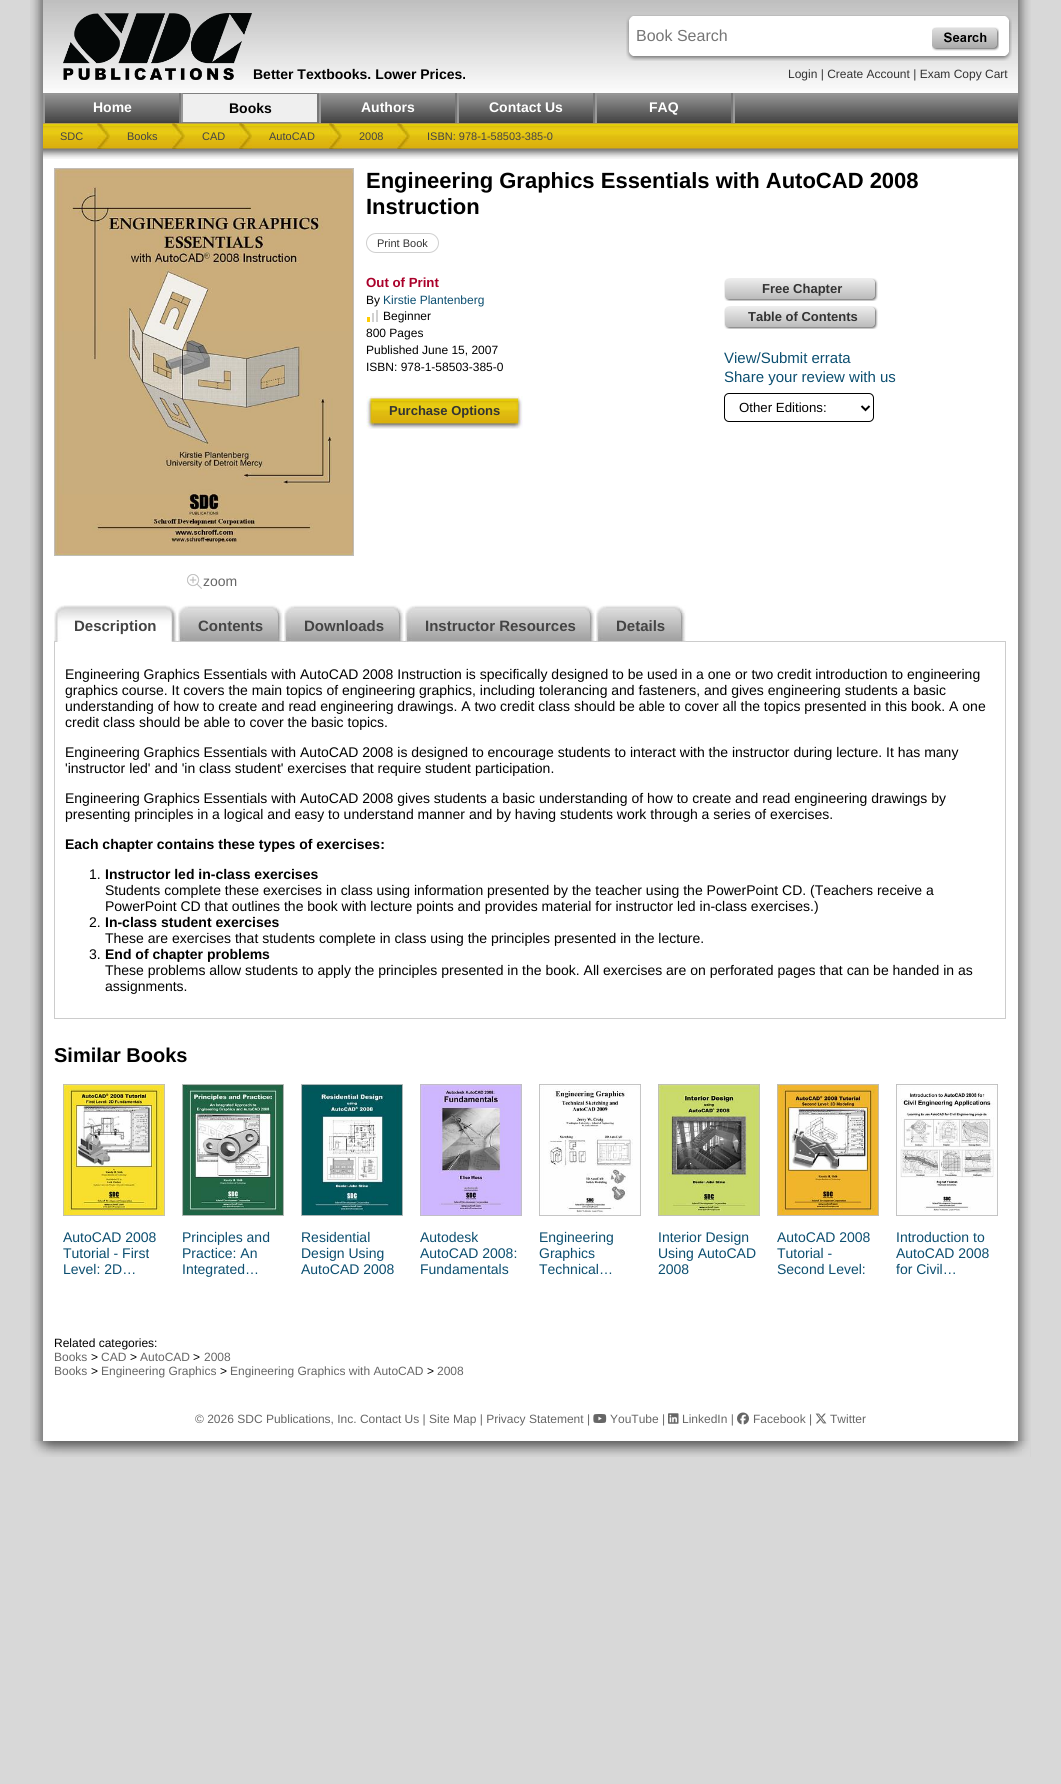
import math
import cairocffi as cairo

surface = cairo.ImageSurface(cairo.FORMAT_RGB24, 1061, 1784)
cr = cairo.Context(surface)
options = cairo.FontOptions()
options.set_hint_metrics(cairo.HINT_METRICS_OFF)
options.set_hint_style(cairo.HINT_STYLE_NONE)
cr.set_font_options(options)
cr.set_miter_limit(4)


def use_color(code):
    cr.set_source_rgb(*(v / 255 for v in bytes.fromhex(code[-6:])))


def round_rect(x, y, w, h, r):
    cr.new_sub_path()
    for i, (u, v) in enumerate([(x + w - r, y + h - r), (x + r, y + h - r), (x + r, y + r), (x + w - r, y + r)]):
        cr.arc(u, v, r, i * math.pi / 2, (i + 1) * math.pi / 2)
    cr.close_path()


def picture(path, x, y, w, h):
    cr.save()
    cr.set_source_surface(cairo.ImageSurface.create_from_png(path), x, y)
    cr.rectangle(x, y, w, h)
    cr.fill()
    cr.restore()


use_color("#d8d8d8")
cr.paint()
picture("img1.png", 30, 0, 1001, 1457)
picture("img2.png", 43, 0, 975, 93)
picture("img3.png", 63, 13, 189, 67)
picture("img4.png", 626, 15, 386, 46)
cr.select_font_face("Liberation Sans")
cr.set_font_size(16)
use_color("#757575")
cr.move_to(636, 41)
cr.show_text("Book Search")
picture("img5.png", 932, 27, 67, 24)
cr.select_font_face("Liberation Sans", cairo.FONT_SLANT_NORMAL, cairo.FONT_WEIGHT_BOLD)
cr.set_font_size(14)
use_color("#000000")
cr.move_to(253, 79)
cr.show_text("Better Textbooks. Lower Prices.")
cr.select_font_face("Liberation Sans")
cr.set_font_size(12)
use_color("#333333")
cr.move_to(788, 78)
cr.show_text("Login | Create Account | Exam Copy Cart")
use_color("#3f3f3f")
cr.rectangle(45, 122, 973, 1)
cr.fill()
picture("img6.png", 45, 93, 973, 29)
use_color("#777777")
cr.rectangle(179, 93, 2, 30)
cr.fill()
use_color("#999999")
cr.rectangle(43, 93, 2, 30)
cr.fill()
cr.select_font_face("Liberation Sans", cairo.FONT_SLANT_NORMAL, cairo.FONT_WEIGHT_BOLD)
cr.set_font_size(14)
use_color("#ffffff")
cr.move_to(93, 112)
cr.show_text("Home")
use_color("#efefef")
cr.rectangle(183, 94, 134, 28)
cr.fill()
use_color("#808080")
cr.new_path()
cr.move_to(181, 93)
cr.line_to(319, 93)
cr.line_to(317, 94)
cr.line_to(183, 94)
cr.close_path()
cr.fill()
use_color("#777777")
cr.new_path()
cr.move_to(319, 93)
cr.line_to(319, 123)
cr.line_to(317, 122)
cr.line_to(317, 94)
cr.close_path()
cr.fill()
use_color("#808080")
cr.new_path()
cr.move_to(319, 123)
cr.line_to(181, 123)
cr.line_to(183, 122)
cr.line_to(317, 122)
cr.close_path()
cr.fill()
use_color("#999999")
cr.new_path()
cr.move_to(181, 123)
cr.line_to(181, 93)
cr.line_to(183, 94)
cr.line_to(183, 122)
cr.close_path()
cr.fill()
use_color("#000000")
cr.move_to(229, 113)
cr.show_text("Books")
use_color("#777777")
cr.rectangle(455, 93, 2, 30)
cr.fill()
use_color("#999999")
cr.rectangle(319, 93, 2, 30)
cr.fill()
use_color("#ffffff")
cr.move_to(361, 112)
cr.show_text("Authors")
use_color("#777777")
cr.rectangle(593, 93, 2, 30)
cr.fill()
use_color("#999999")
cr.rectangle(457, 93, 2, 30)
cr.fill()
use_color("#ffffff")
cr.move_to(489, 112)
cr.show_text("Contact Us")
use_color("#777777")
cr.rectangle(731, 93, 2, 30)
cr.fill()
use_color("#999999")
cr.rectangle(595, 93, 2, 30)
cr.fill()
use_color("#ffffff")
cr.move_to(649, 112)
cr.show_text("FAQ")
use_color("#999999")
cr.rectangle(733, 93, 2, 30)
cr.fill()
picture("img7.png", 43, 123, 975, 26)
picture("img8.png", 97, 123, 13, 26)
cr.select_font_face("Liberation Sans")
cr.set_font_size(11)
use_color("#444444")
cr.move_to(60, 140)
cr.show_text("SDC")
picture("img9.png", 172, 123, 13, 26)
cr.move_to(127, 140)
cr.show_text("Books")
picture("img8.png", 239, 123, 13, 26)
cr.move_to(202, 140)
cr.show_text("CAD")
picture("img10.png", 329, 123, 13, 26)
cr.move_to(269, 140)
cr.show_text("AutoCAD")
picture("img11.png", 397, 123, 13, 26)
cr.move_to(359, 140)
cr.show_text("2008")
cr.move_to(427, 140)
cr.show_text("ISBN: 978-1-58503-385-0")
picture("img12.png", 43, 149, 975, 10)
cr.select_font_face("Liberation Sans", cairo.FONT_SLANT_NORMAL, cairo.FONT_WEIGHT_BOLD)
cr.set_font_size(22)
use_color("#000000")
cr.move_to(366, 188)
cr.show_text("Engineering Graphics Essentials with AutoCAD 2008")
cr.move_to(366, 214)
cr.show_text("Instruction")
round_rect(366.5, 233.5, 72, 19, 9.5)
use_color("#cfcfcf")
cr.set_line_width(1)
cr.stroke()
cr.select_font_face("Liberation Sans")
cr.set_font_size(11)
use_color("#333333")
cr.move_to(377, 247)
cr.show_text("Print Book")
cr.select_font_face("Liberation Sans", cairo.FONT_SLANT_NORMAL, cairo.FONT_WEIGHT_BOLD)
cr.set_font_size(13.25)
use_color("#aa002a")
cr.move_to(366, 287)
cr.show_text("Out of Print")
cr.select_font_face("Liberation Sans")
cr.set_font_size(12)
use_color("#000000")
cr.move_to(366, 304)
cr.show_text("By")
use_color("#0b4e70")
cr.move_to(383, 304)
cr.show_text("Kirstie Plantenberg")
use_color("#ffcc02")
cr.rectangle(367, 317, 3, 5)
cr.fill()
use_color("#d1d1d1")
cr.rectangle(372, 313, 2, 9)
cr.fill()
cr.rectangle(376, 310, 2, 12)
cr.fill()
use_color("#000000")
cr.move_to(383, 320)
cr.show_text("Beginner")
cr.move_to(366, 337)
cr.show_text("800 Pages")
cr.move_to(366, 354)
cr.show_text("Published June 15, 2007")
cr.move_to(366, 371)
cr.show_text("ISBN: 978-1-58503-385-0")
picture("img13.png", 366, 396, 157, 33)
cr.select_font_face("Liberation Sans", cairo.FONT_SLANT_NORMAL, cairo.FONT_WEIGHT_BOLD)
cr.set_font_size(13)
use_color("#333333")
cr.move_to(389, 415)
cr.show_text("Purchase Options")
picture("img14.png", 724, 278, 154, 23)
cr.move_to(762, 293)
cr.show_text("Free Chapter")
picture("img14.png", 724, 306, 154, 23)
cr.move_to(748, 321)
cr.show_text("Table of Contents")
cr.select_font_face("Liberation Sans")
cr.set_font_size(15)
use_color("#0b4e70")
cr.move_to(724, 363)
cr.show_text("View/Submit errata")
cr.move_to(724, 382)
cr.show_text("Share your review with us")
round_rect(724.5, 393.5, 149, 28, 4.5)
use_color("#000000")
cr.stroke()
cr.new_path()
cr.move_to(861.5, 406)
cr.line_to(865.5, 410)
cr.line_to(869.5, 406)
cr.set_line_width(2)
cr.stroke()
cr.set_font_size(13.25)
cr.move_to(739, 412)
cr.show_text("Other Editions:")
picture("img15.png", 54, 168, 300, 388)
cr.rectangle(54.5, 168.5, 299, 387)
cr.set_source_rgba(0.784, 0.784, 0.784, 0.75)
cr.set_line_width(1)
cr.stroke()
picture("img16.png", 187, 574, 15, 15)
cr.set_font_size(14)
use_color("#666666")
cr.move_to(203, 586)
cr.show_text("zoom")
use_color("#cccccc")
cr.rectangle(177, 641, 829, 1)
cr.fill()
picture("img17.png", 54, 605, 112, 37)
picture("img18.png", 166, 605, 11, 37)
cr.select_font_face("Liberation Sans", cairo.FONT_SLANT_NORMAL, cairo.FONT_WEIGHT_BOLD)
cr.set_font_size(15)
use_color("#444444")
cr.move_to(74, 631)
cr.show_text("Description")
picture("img19.png", 178, 605, 95, 37)
picture("img20.png", 273, 605, 10, 37)
cr.move_to(198, 631)
cr.show_text("Contents")
picture("img21.png", 284, 605, 110, 37)
picture("img20.png", 394, 605, 10, 37)
cr.move_to(304, 631)
cr.show_text("Downloads")
picture("img22.png", 405, 605, 180, 37)
picture("img23.png", 585, 605, 10, 37)
cr.move_to(425, 631)
cr.show_text("Instructor Resources")
picture("img24.png", 596, 605, 79, 37)
picture("img25.png", 675, 605, 11, 37)
cr.move_to(616, 631)
cr.show_text("Details")
use_color("#cccccc")
cr.rectangle(1005, 642, 1, 377)
cr.fill()
cr.rectangle(54, 1018, 952, 1)
cr.fill()
cr.rectangle(54, 642, 1, 377)
cr.fill()
cr.select_font_face("Liberation Sans")
cr.set_font_size(14)
use_color("#000000")
cr.move_to(65, 679)
cr.show_text("Engineering Graphics Essentials with AutoCAD 2008 Instruction is specifically designed to be used in a one or two credit introduction to engineering")
cr.move_to(65, 695)
cr.show_text("graphics course. It covers the main topics of engineering graphics, including tolerancing and fasteners, and gives engineering students a basic")
cr.move_to(65, 711)
cr.show_text("understanding of how to create and read engineering drawings. A two credit class should be able to cover all the topics presented in this book. A one")
cr.move_to(65, 727)
cr.show_text("credit class should be able to cover the basic topics.")
cr.move_to(65, 757)
cr.show_text("Engineering Graphics Essentials with AutoCAD 2008 is designed to encourage students to interact with the instructor during lecture. It has many")
cr.move_to(65, 773)
cr.show_text("'instructor led' and 'in class student' exercises that require student participation.")
cr.move_to(65, 803)
cr.show_text("Engineering Graphics Essentials with AutoCAD 2008 gives students a basic understanding of how to create and read engineering drawings by")
cr.move_to(65, 819)
cr.show_text("presenting principles in a logical and easy to understand manner and by having students work through a series of exercises.")
cr.select_font_face("Liberation Sans", cairo.FONT_SLANT_NORMAL, cairo.FONT_WEIGHT_BOLD)
cr.move_to(65, 849)
cr.show_text("Each chapter contains these types of exercises:")
cr.select_font_face("Liberation Sans")
cr.move_to(89, 879)
cr.show_text("1.")
cr.select_font_face("Liberation Sans", cairo.FONT_SLANT_NORMAL, cairo.FONT_WEIGHT_BOLD)
cr.move_to(105, 879)
cr.show_text("Instructor led in-class exercises")
cr.select_font_face("Liberation Sans")
cr.move_to(105, 895)
cr.show_text("Students complete these exercises in class using information presented by the teacher using the PowerPoint CD. (Teachers receive a")
cr.move_to(105, 911)
cr.show_text("PowerPoint CD that outlines the book with lecture points and provides material for instructor led in-class exercises.)")
cr.move_to(89, 927)
cr.show_text("2.")
cr.select_font_face("Liberation Sans", cairo.FONT_SLANT_NORMAL, cairo.FONT_WEIGHT_BOLD)
cr.move_to(105, 927)
cr.show_text("In-class student exercises")
cr.select_font_face("Liberation Sans")
cr.move_to(105, 943)
cr.show_text("These are exercises that students complete in class using the principles presented in the lecture.")
cr.move_to(89, 959)
cr.show_text("3.")
cr.select_font_face("Liberation Sans", cairo.FONT_SLANT_NORMAL, cairo.FONT_WEIGHT_BOLD)
cr.move_to(105, 959)
cr.show_text("End of chapter problems")
cr.select_font_face("Liberation Sans")
cr.move_to(105, 975)
cr.show_text("These problems allow students to apply the principles presented in the book. All exercises are on perforated pages that can be handed in as")
cr.move_to(105, 991)
cr.show_text("assignments.")
cr.select_font_face("Liberation Sans", cairo.FONT_SLANT_NORMAL, cairo.FONT_WEIGHT_BOLD)
cr.set_font_size(20)
cr.move_to(54, 1062)
cr.show_text("Similar Books")
picture("img26.png", 63, 1084, 102, 132)
cr.rectangle(63.5, 1084.5, 101, 131)
cr.set_source_rgba(0.784, 0.784, 0.784, 0.75)
cr.stroke()
cr.select_font_face("Liberation Sans")
cr.set_font_size(14)
use_color("#0b4e70")
cr.move_to(63, 1242)
cr.show_text("AutoCAD 2008")
cr.move_to(63, 1258)
cr.show_text("Tutorial - First")
cr.move_to(63, 1274)
cr.show_text("Level: 2D…")
picture("img27.png", 182, 1084, 102, 132)
cr.rectangle(182.5, 1084.5, 101, 131)
cr.set_source_rgba(0.784, 0.784, 0.784, 0.75)
cr.stroke()
use_color("#0b4e70")
cr.move_to(182, 1242)
cr.show_text("Principles and")
cr.move_to(182, 1258)
cr.show_text("Practice: An")
cr.move_to(182, 1274)
cr.show_text("Integrated…")
picture("img28.png", 301, 1084, 102, 132)
cr.rectangle(301.5, 1084.5, 101, 131)
cr.set_source_rgba(0.784, 0.784, 0.784, 0.75)
cr.stroke()
use_color("#0b4e70")
cr.move_to(301, 1242)
cr.show_text("Residential")
cr.move_to(301, 1258)
cr.show_text("Design Using")
cr.move_to(301, 1274)
cr.show_text("AutoCAD 2008")
picture("img29.png", 420, 1084, 102, 132)
cr.rectangle(420.5, 1084.5, 101, 131)
cr.set_source_rgba(0.784, 0.784, 0.784, 0.75)
cr.stroke()
use_color("#0b4e70")
cr.move_to(420, 1242)
cr.show_text("Autodesk")
cr.move_to(420, 1258)
cr.show_text("AutoCAD 2008:")
cr.move_to(420, 1274)
cr.show_text("Fundamentals")
picture("img30.png", 539, 1084, 102, 132)
cr.rectangle(539.5, 1084.5, 101, 131)
cr.set_source_rgba(0.784, 0.784, 0.784, 0.75)
cr.stroke()
use_color("#0b4e70")
cr.move_to(539, 1242)
cr.show_text("Engineering")
cr.move_to(539, 1258)
cr.show_text("Graphics")
cr.move_to(539, 1274)
cr.show_text("Technical…")
picture("img31.png", 658, 1084, 102, 132)
cr.rectangle(658.5, 1084.5, 101, 131)
cr.set_source_rgba(0.784, 0.784, 0.784, 0.75)
cr.stroke()
use_color("#0b4e70")
cr.move_to(658, 1242)
cr.show_text("Interior Design")
cr.move_to(658, 1258)
cr.show_text("Using AutoCAD")
cr.move_to(658, 1274)
cr.show_text("2008")
picture("img32.png", 777, 1084, 102, 132)
cr.rectangle(777.5, 1084.5, 101, 131)
cr.set_source_rgba(0.784, 0.784, 0.784, 0.75)
cr.stroke()
use_color("#0b4e70")
cr.move_to(777, 1242)
cr.show_text("AutoCAD 2008")
cr.move_to(777, 1258)
cr.show_text("Tutorial -")
cr.move_to(777, 1274)
cr.show_text("Second Level:")
picture("img33.png", 896, 1084, 102, 132)
cr.rectangle(896.5, 1084.5, 101, 131)
cr.set_source_rgba(0.784, 0.784, 0.784, 0.75)
cr.stroke()
use_color("#0b4e70")
cr.move_to(896, 1242)
cr.show_text("Introduction to")
cr.move_to(896, 1258)
cr.show_text("AutoCAD 2008")
cr.move_to(896, 1274)
cr.show_text("for Civil…")
cr.set_font_size(12)
use_color("#000000")
cr.move_to(54, 1347)
cr.show_text("Related categories:")
use_color("#666666")
cr.move_to(54, 1361)
cr.show_text("Books")
use_color("#000000")
cr.move_to(91, 1361)
cr.show_text(">")
use_color("#666666")
cr.move_to(101, 1361)
cr.show_text("CAD")
use_color("#000000")
cr.move_to(130, 1361)
cr.show_text(">")
use_color("#666666")
cr.move_to(140, 1361)
cr.show_text("AutoCAD")
use_color("#000000")
cr.move_to(193, 1361)
cr.show_text(">")
use_color("#666666")
cr.move_to(204, 1361)
cr.show_text("2008")
cr.move_to(54, 1375)
cr.show_text("Books")
use_color("#000000")
cr.move_to(91, 1375)
cr.show_text(">")
use_color("#666666")
cr.move_to(101, 1375)
cr.show_text("Engineering Graphics")
use_color("#000000")
cr.move_to(220, 1375)
cr.show_text(">")
use_color("#666666")
cr.move_to(230, 1375)
cr.show_text("Engineering Graphics with AutoCAD")
use_color("#000000")
cr.move_to(427, 1375)
cr.show_text(">")
use_color("#666666")
cr.move_to(437, 1375)
cr.show_text("2008")
cr.move_to(195, 1423)
cr.show_text("© 2026 SDC Publications, Inc. Contact Us | Site Map | Privacy Statement |")
picture("img34.png", 593, 1414, 14, 9)
cr.move_to(610, 1423)
cr.show_text("YouTube |")
picture("img35.png", 668, 1413, 11, 11)
cr.move_to(682, 1423)
cr.show_text("LinkedIn |")
picture("img36.png", 737, 1412, 12, 13)
cr.move_to(753, 1423)
cr.show_text("Facebook |")
picture("img37.png", 815, 1413, 12, 11)
cr.move_to(830, 1423)
cr.show_text("Twitter")
picture("img38.png", 30, 1441, 1000, 16)
surface.write_to_png("result.png")
